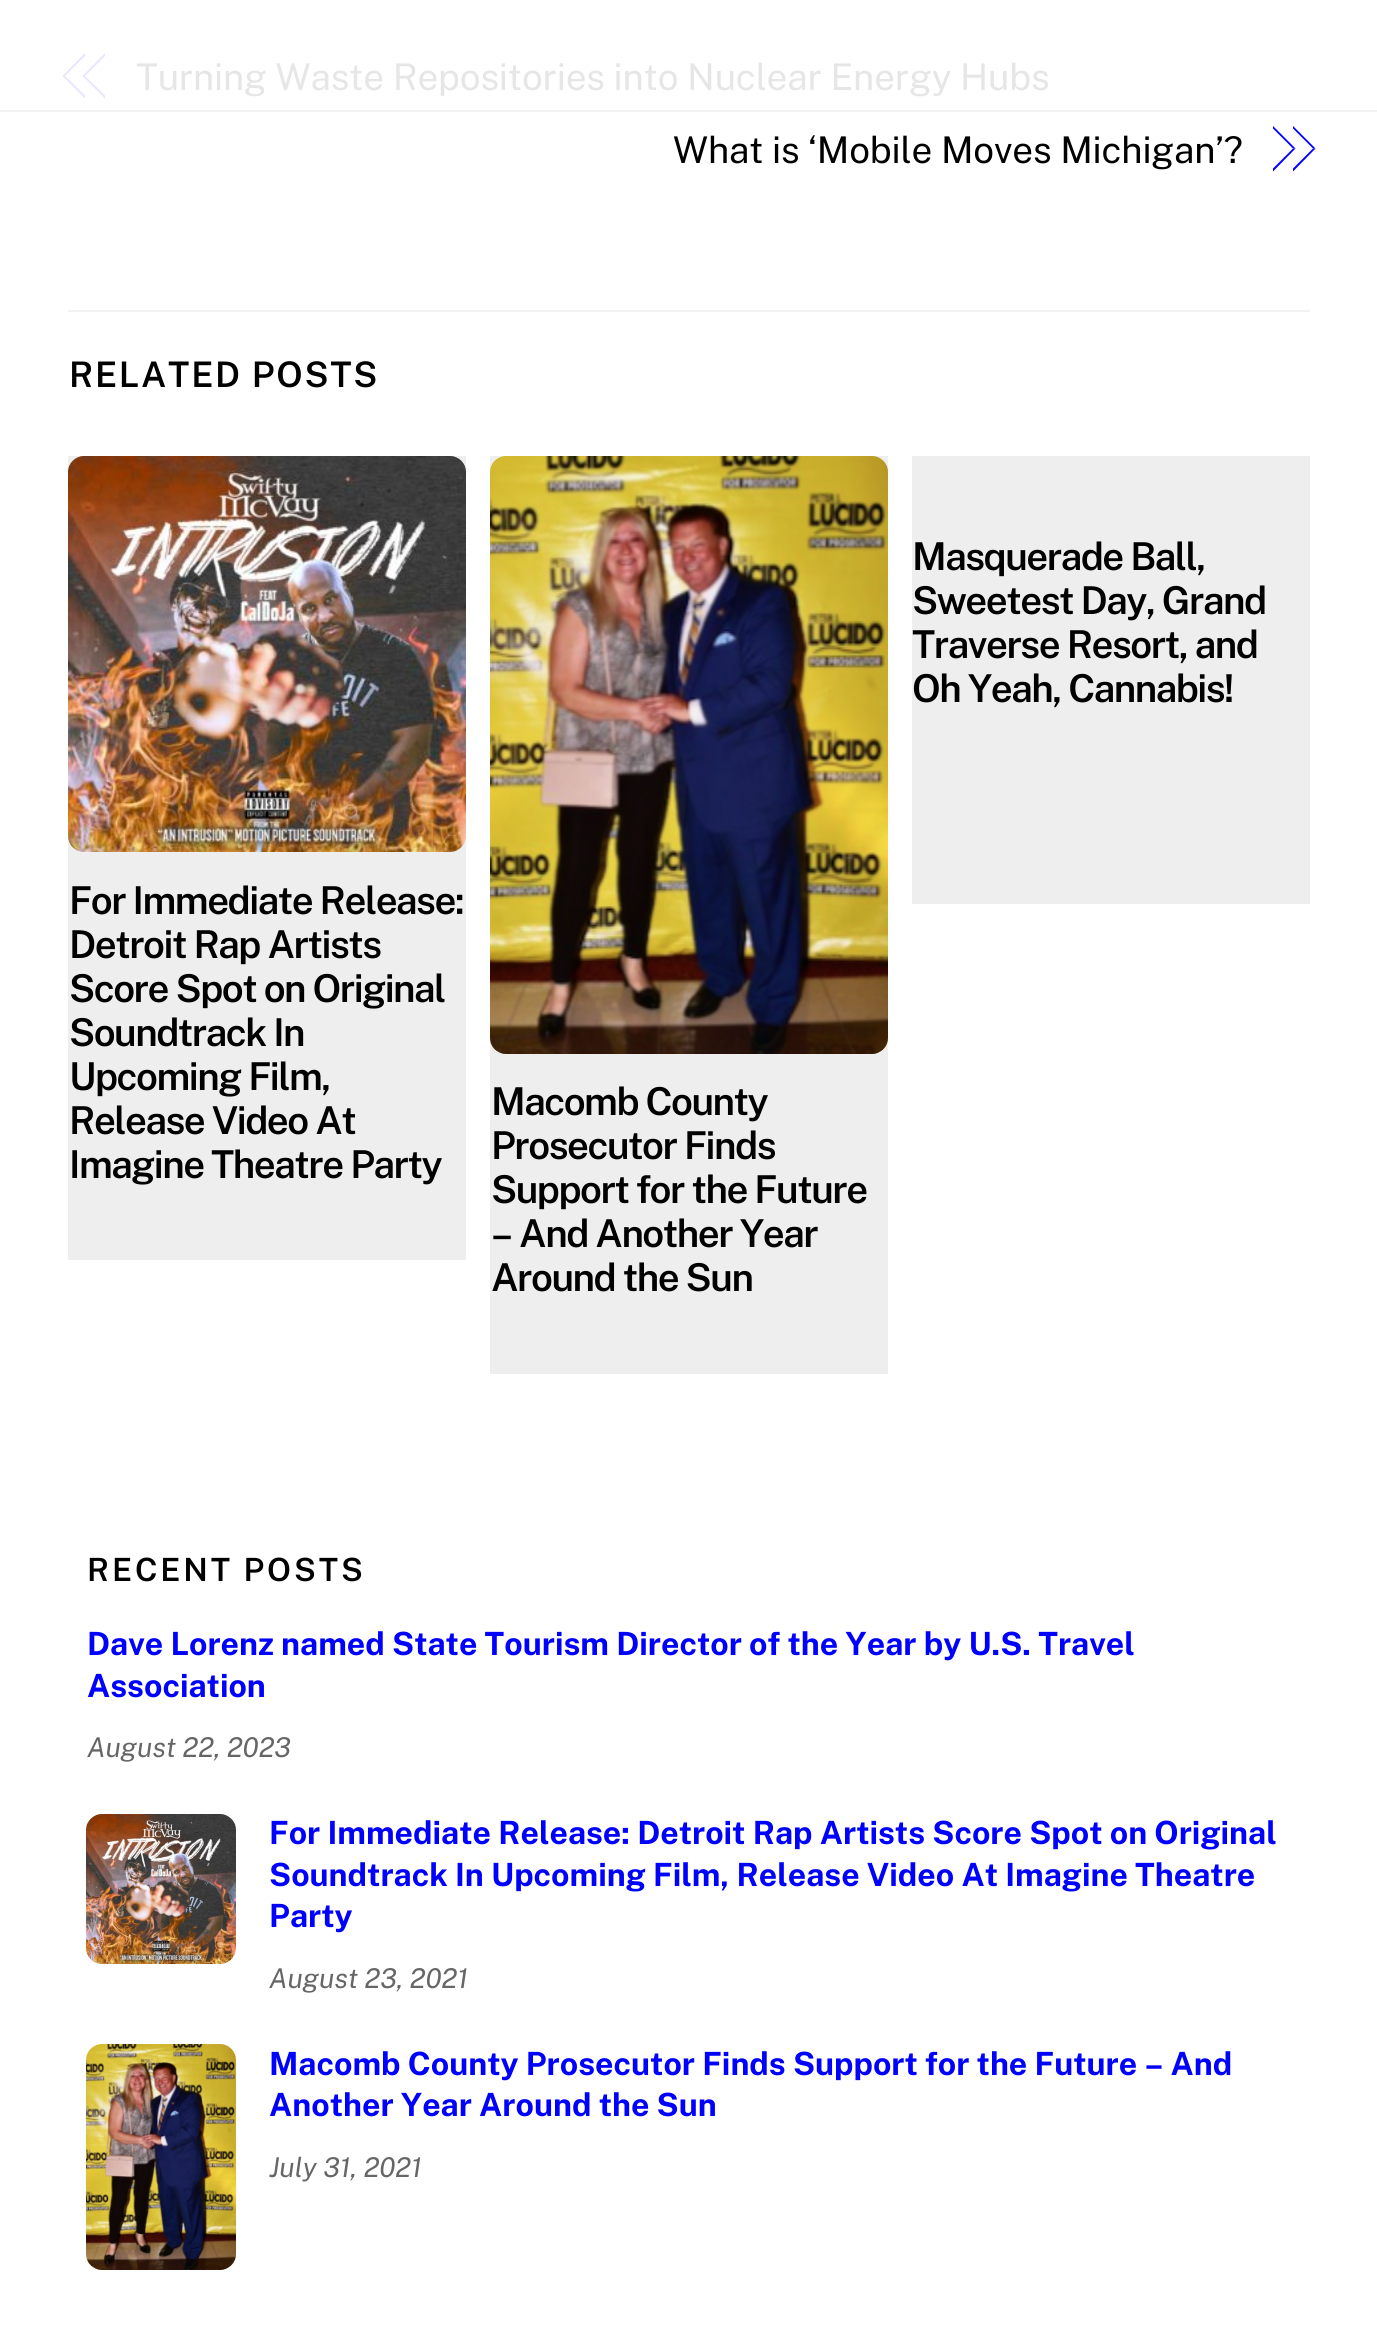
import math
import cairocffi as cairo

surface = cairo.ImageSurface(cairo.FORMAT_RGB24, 1377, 2338)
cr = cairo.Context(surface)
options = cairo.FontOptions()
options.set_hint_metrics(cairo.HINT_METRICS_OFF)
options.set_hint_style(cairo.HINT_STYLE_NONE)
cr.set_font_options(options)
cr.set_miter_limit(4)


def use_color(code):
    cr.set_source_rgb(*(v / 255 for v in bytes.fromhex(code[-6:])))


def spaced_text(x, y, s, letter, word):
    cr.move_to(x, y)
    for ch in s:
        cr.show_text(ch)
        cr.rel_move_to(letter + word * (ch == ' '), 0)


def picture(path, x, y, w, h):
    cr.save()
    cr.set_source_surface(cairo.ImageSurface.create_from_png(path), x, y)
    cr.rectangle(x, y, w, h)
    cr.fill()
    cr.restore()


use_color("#ffffff")
cr.paint()
use_color("#e6e6ff")
cr.new_path()
cr.move_to(62.5, 76)
cr.line_to(85, 53)
cr.line_to(85, 56)
cr.line_to(65, 76)
cr.close_path()
cr.move_to(85, 98.5)
cr.line_to(62.5, 76)
cr.line_to(65, 76)
cr.line_to(85, 95.5)
cr.close_path()
cr.fill()
cr.new_path()
cr.move_to(82.5, 76)
cr.line_to(105, 53)
cr.line_to(105, 56)
cr.line_to(85, 76)
cr.close_path()
cr.move_to(105, 98.5)
cr.line_to(82.5, 76)
cr.line_to(85, 76)
cr.line_to(105, 95.5)
cr.close_path()
cr.fill()
cr.select_font_face("Public Sans")
cr.set_font_size(36.8)
use_color("#e6e6e6")
spaced_text(136, 90, "Turning Waste Repositories into Nuclear Energy Hubs", -0.18, 0)
use_color("#000000")
spaced_text(673, 163, "What is ‘Mobile Moves Michigan’?", -0.18, 0)
use_color("#0000ff")
cr.new_path()
cr.move_to(1293, 126)
cr.line_to(1315.5, 148.5)
cr.line_to(1313, 148.5)
cr.line_to(1293, 128.5)
cr.close_path()
cr.fill()
cr.new_path()
cr.move_to(1315.5, 148.5)
cr.line_to(1293, 171.5)
cr.line_to(1293, 168.5)
cr.line_to(1313, 148.5)
cr.close_path()
cr.fill()
cr.new_path()
cr.move_to(1273, 126)
cr.line_to(1295.5, 148.5)
cr.line_to(1293, 148.5)
cr.line_to(1273, 128.5)
cr.close_path()
cr.fill()
cr.new_path()
cr.move_to(1295.5, 148.5)
cr.line_to(1273, 171.5)
cr.line_to(1273, 168.5)
cr.line_to(1293, 148.5)
cr.close_path()
cr.fill()
use_color("#f2f2f2")
cr.rectangle(68, 310, 1242, 2)
cr.fill()
cr.select_font_face("Public Sans SemiBold")
cr.set_font_size(35.25)
use_color("#000000")
spaced_text(69, 387, "RELATED POSTS", 1.75, 0)
use_color("#eeeeee")
cr.rectangle(912, 456, 398, 448)
cr.fill()
cr.set_font_size(38.4)
use_color("#000000")
spaced_text(912, 570, "Masquerade Ball,", -1.5, 0)
spaced_text(912, 614, "Sweetest Day, Grand", -1.5, 0)
spaced_text(912, 658, "Traverse Resort, and", -1.5, 0)
spaced_text(912, 702, "Oh Yeah, Cannabis!", -1.5, 0)
use_color("#eeeeee")
cr.rectangle(68, 456, 398, 804)
cr.fill()
picture("img1.png", 68, 456, 398, 396)
use_color("#000000")
spaced_text(69, 914, "For Immediate Release:", -1.5, 0)
spaced_text(69, 958, "Detroit Rap Artists", -1.5, 0)
spaced_text(69, 1002, "Score Spot on Original", -1.5, 0)
spaced_text(69, 1046, "Soundtrack In", -1.5, 0)
spaced_text(69, 1090, "Upcoming Film,", -1.5, 0)
spaced_text(69, 1134, "Release Video At", -1.5, 0)
spaced_text(69, 1178, "Imagine Theatre Party", -1.5, 0)
use_color("#eeeeee")
cr.rectangle(490, 456, 398, 918)
cr.fill()
picture("img2.png", 490, 456, 398, 598)
use_color("#000000")
spaced_text(491, 1115, "Macomb County", -1.5, 0)
spaced_text(491, 1159, "Prosecutor Finds", -1.5, 0)
spaced_text(491, 1203, "Support for the Future", -1.5, 0)
spaced_text(491, 1247, "– And Another Year", -1.5, 0)
spaced_text(491, 1291, "Around the Sun", -1.5, 0)
cr.set_font_size(32)
spaced_text(87, 1581, "RECENT POSTS", 2.9, 0)
cr.select_font_face("Public Sans", cairo.FONT_SLANT_NORMAL, cairo.FONT_WEIGHT_BOLD)
use_color("#0000ff")
cr.move_to(87, 1655)
cr.show_text("Dave Lorenz named State Tourism Director of the Year by U.S. Travel")
cr.move_to(87, 1697)
cr.show_text("Association")
cr.select_font_face("Public Sans", cairo.FONT_SLANT_ITALIC)
cr.set_font_size(27.25)
use_color("#666666")
cr.move_to(87, 1757)
cr.show_text("August 22, 2023")
picture("img3.png", 86, 1814, 150, 150)
cr.select_font_face("Public Sans", cairo.FONT_SLANT_NORMAL, cairo.FONT_WEIGHT_BOLD)
cr.set_font_size(32)
use_color("#0000ff")
cr.move_to(269, 1844)
cr.show_text("For Immediate Release: Detroit Rap Artists Score Spot on Original")
cr.move_to(269, 1886)
cr.show_text("Soundtrack In Upcoming Film, Release Video At Imagine Theatre")
cr.move_to(269, 1927)
cr.show_text("Party")
cr.select_font_face("Public Sans", cairo.FONT_SLANT_ITALIC)
cr.set_font_size(27.25)
use_color("#666666")
cr.move_to(269, 1988)
cr.show_text("August 23, 2021")
picture("img4.png", 86, 2044, 150, 226)
cr.select_font_face("Public Sans", cairo.FONT_SLANT_NORMAL, cairo.FONT_WEIGHT_BOLD)
cr.set_font_size(32)
use_color("#0000ff")
cr.move_to(269, 2075)
cr.show_text("Macomb County Prosecutor Finds Support for the Future – And")
cr.move_to(269, 2116)
cr.show_text("Another Year Around the Sun")
cr.select_font_face("Public Sans", cairo.FONT_SLANT_ITALIC)
cr.set_font_size(27.25)
use_color("#666666")
cr.move_to(269, 2177)
cr.show_text("July 31, 2021")
use_color("#f2f2f2")
cr.rectangle(0, 110, 1377, 2)
cr.fill()
surface.write_to_png("result.png")
